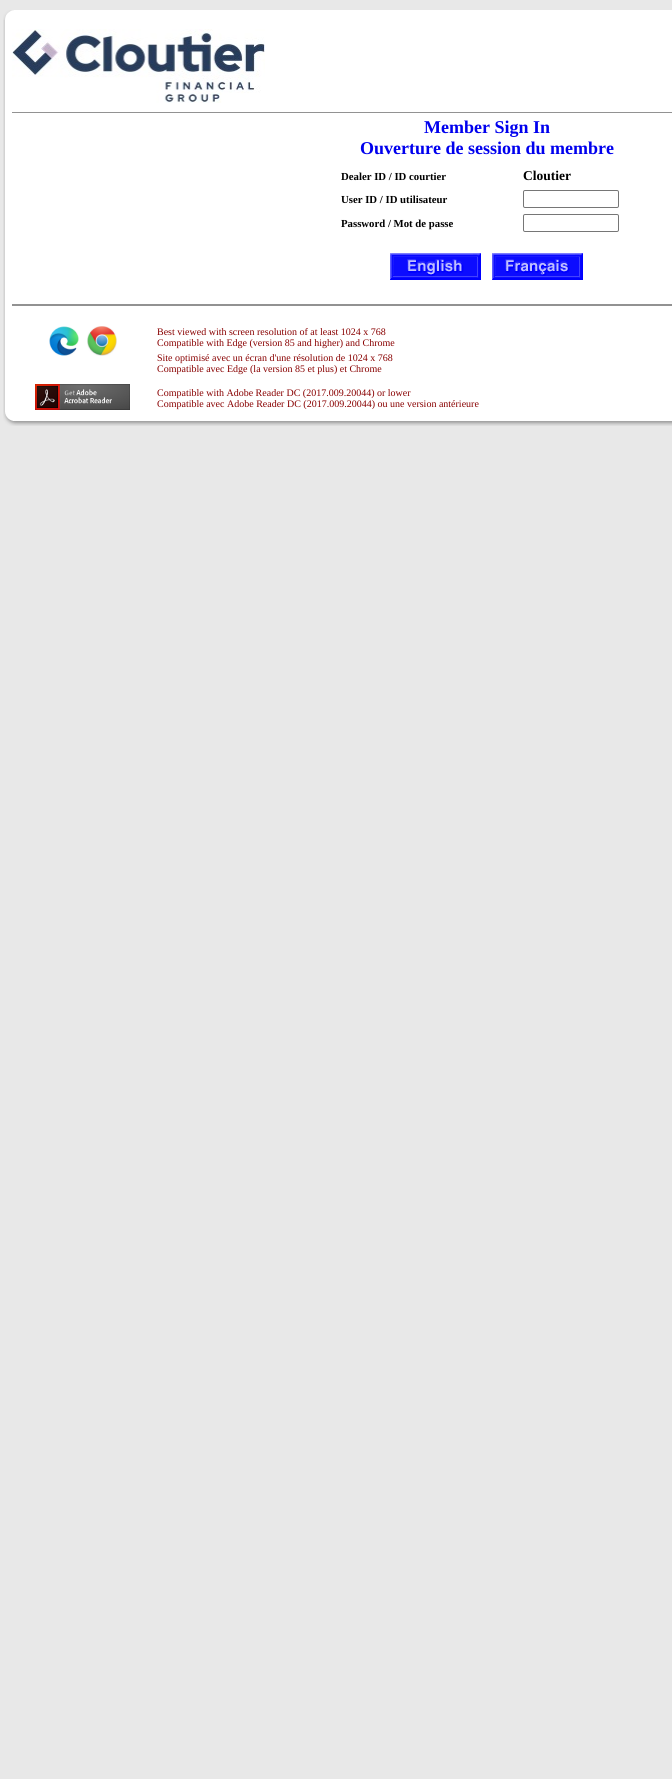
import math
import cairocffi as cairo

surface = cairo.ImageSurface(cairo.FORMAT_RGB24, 672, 1779)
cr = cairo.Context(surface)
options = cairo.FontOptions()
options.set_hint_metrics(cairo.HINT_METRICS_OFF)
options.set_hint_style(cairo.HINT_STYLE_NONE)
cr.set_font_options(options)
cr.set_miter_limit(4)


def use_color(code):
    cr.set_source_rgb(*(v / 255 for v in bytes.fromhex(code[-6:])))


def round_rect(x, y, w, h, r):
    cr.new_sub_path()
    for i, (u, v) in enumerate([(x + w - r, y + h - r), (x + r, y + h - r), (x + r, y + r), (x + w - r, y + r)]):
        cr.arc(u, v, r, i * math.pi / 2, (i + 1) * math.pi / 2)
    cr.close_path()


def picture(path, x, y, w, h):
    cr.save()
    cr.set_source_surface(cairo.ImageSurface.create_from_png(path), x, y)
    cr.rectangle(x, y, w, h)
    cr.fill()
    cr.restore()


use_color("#e8e8e8")
cr.paint()
picture("img1.png", 3, 10, 669, 10)
picture("img2.png", 3, 20, 669, 392)
picture("img3.png", 12, 29, 253, 74)
use_color("#929292")
cr.rectangle(12, 112, 660, 1)
cr.fill()
cr.select_font_face("Liberation Serif", cairo.FONT_SLANT_NORMAL, cairo.FONT_WEIGHT_BOLD)
cr.set_font_size(18)
use_color("#0000ee")
cr.move_to(424, 133)
cr.show_text("Member Sign In")
cr.move_to(360, 154)
cr.show_text("Ouverture de session du membre")
cr.set_font_size(10.75)
use_color("#000000")
cr.move_to(341, 180)
cr.show_text("Dealer ID / ID courtier")
cr.set_font_size(13.5)
cr.move_to(523, 180)
cr.show_text("Cloutier")
cr.set_font_size(10.75)
cr.move_to(341, 203)
cr.show_text("User ID / ID utilisateur")
round_rect(523.5, 190.5, 95, 17, 1.5)
use_color("#767676")
cr.set_line_width(1)
cr.stroke()
use_color("#000000")
cr.move_to(341, 227)
cr.show_text("Password / Mot de passe")
round_rect(523.5, 214.5, 95, 17, 1.5)
use_color("#767676")
cr.stroke()
picture("img4.png", 390, 253, 91, 27)
picture("img5.png", 492, 253, 91, 27)
use_color("#929292")
cr.rectangle(12, 304, 660, 2)
cr.fill()
picture("img6.png", 49, 326, 30, 30)
picture("img7.png", 87, 326, 30, 30)
cr.select_font_face("Liberation Serif")
cr.set_font_size(10)
use_color("#880000")
cr.move_to(157, 335)
cr.show_text("Best viewed with screen resolution of at least 1024 x 768")
cr.move_to(157, 346)
cr.show_text("Compatible with Edge (version 85 and higher) and Chrome")
cr.move_to(157, 361)
cr.show_text("Site optimisé avec un écran d'une résolution de 1024 x 768")
cr.move_to(157, 372)
cr.show_text("Compatible avec Edge (la version 85 et plus) et Chrome")
picture("img8.png", 35, 384, 95, 26)
cr.move_to(157, 396)
cr.show_text("Compatible with Adobe Reader DC (2017.009.20044) or lower")
cr.move_to(157, 407)
cr.show_text("Compatible avec Adobe Reader DC (2017.009.20044) ou une version antérieure")
picture("img9.png", 3, 412, 669, 14)
surface.write_to_png("result.png")
